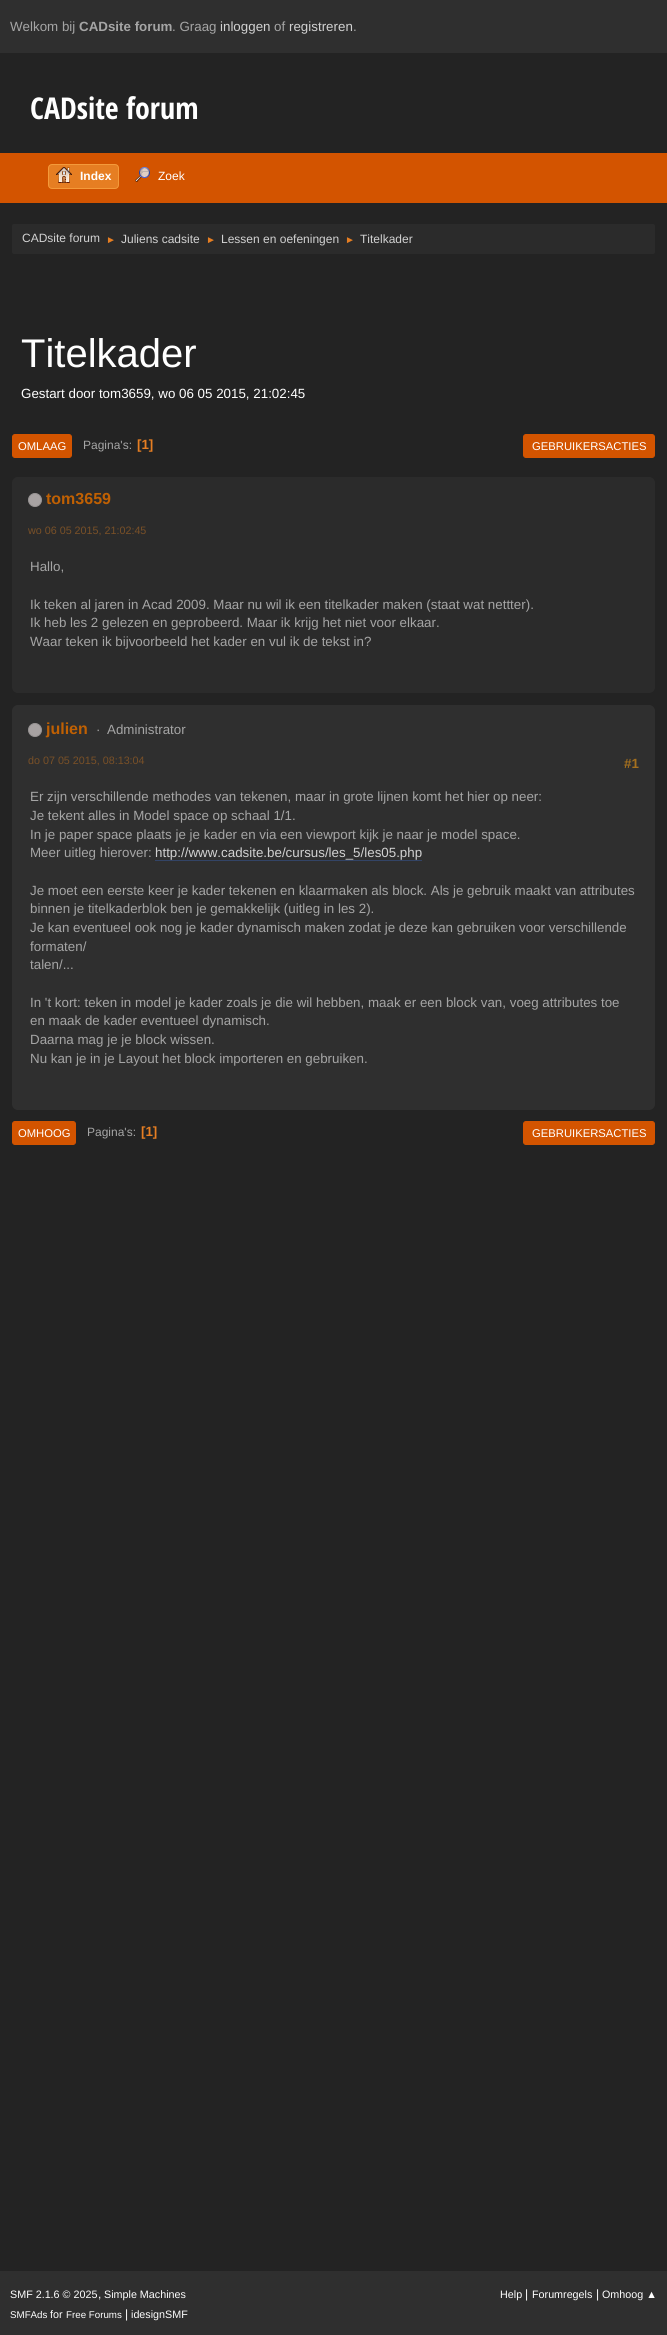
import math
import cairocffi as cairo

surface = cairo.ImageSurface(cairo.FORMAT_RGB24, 667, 2335)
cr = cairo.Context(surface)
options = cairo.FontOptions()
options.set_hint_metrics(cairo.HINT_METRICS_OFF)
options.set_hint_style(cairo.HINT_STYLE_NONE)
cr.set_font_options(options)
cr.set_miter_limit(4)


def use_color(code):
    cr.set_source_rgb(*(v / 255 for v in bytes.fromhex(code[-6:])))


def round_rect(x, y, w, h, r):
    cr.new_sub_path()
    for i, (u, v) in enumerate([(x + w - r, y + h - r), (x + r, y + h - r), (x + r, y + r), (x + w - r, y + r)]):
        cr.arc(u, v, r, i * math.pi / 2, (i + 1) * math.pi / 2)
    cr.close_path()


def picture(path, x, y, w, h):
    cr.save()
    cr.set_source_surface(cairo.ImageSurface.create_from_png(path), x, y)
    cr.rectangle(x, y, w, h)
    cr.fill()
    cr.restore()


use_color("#232323")
cr.paint()
use_color("#2f2f2f")
cr.rectangle(0, 0, 667, 53)
cr.fill()
cr.select_font_face("Liberation Sans")
cr.set_font_size(13.35)
use_color("#a5a5a5")
cr.move_to(10, 31)
cr.show_text("Welkom bij")
cr.select_font_face("Liberation Sans", cairo.FONT_SLANT_NORMAL, cairo.FONT_WEIGHT_BOLD)
cr.move_to(79, 31)
cr.show_text("CADsite forum")
cr.select_font_face("Liberation Sans")
cr.move_to(172, 31)
cr.show_text(". Graag")
use_color("#d2d2d2")
cr.move_to(220, 31)
cr.show_text("inloggen")
use_color("#a5a5a5")
cr.move_to(274, 31)
cr.show_text("of")
use_color("#d2d2d2")
cr.move_to(289, 31)
cr.show_text("registreren")
use_color("#a5a5a5")
cr.move_to(353, 31)
cr.show_text(".")
cr.select_font_face("Open Sans Condensed", cairo.FONT_SLANT_NORMAL, cairo.FONT_WEIGHT_BOLD)
cr.set_font_size(30)
use_color("#ffffff")
cr.move_to(30, 119)
cr.show_text("CADsite forum")
use_color("#d35400")
cr.rectangle(0, 153, 667, 50)
cr.fill()
use_color("#e67e22")
round_rect(48.5, 164.5, 70, 24, 3.5)
cr.fill_preserve()
use_color("#f49a3a")
cr.set_line_width(1)
cr.stroke()
picture("img1.png", 56, 167, 16, 16)
cr.select_font_face("Liberation Sans", cairo.FONT_SLANT_NORMAL, cairo.FONT_WEIGHT_BOLD)
cr.set_font_size(12)
use_color("#ffffff")
cr.move_to(80, 180)
cr.show_text("Index")
picture("img2.png", 135, 167, 15, 15)
cr.select_font_face("Liberation Sans")
cr.move_to(158, 180)
cr.show_text("Zoek")
use_color("#2b2b2b")
round_rect(12, 224, 643, 30, 2)
cr.fill()
use_color("#d2d2d2")
cr.move_to(22, 242)
cr.show_text("CADsite forum")
cr.set_font_size(10)
use_color("#e67e22")
cr.move_to(106, 243)
cr.show_text("►")
cr.set_font_size(12)
use_color("#d2d2d2")
cr.move_to(121, 243)
cr.show_text("Juliens cadsite")
cr.set_font_size(10)
use_color("#e67e22")
cr.move_to(206, 243)
cr.show_text("►")
cr.set_font_size(12)
use_color("#d2d2d2")
cr.move_to(221, 243)
cr.show_text("Lessen en oefeningen")
cr.set_font_size(10)
use_color("#e67e22")
cr.move_to(345, 243)
cr.show_text("►")
cr.set_font_size(12)
use_color("#d2d2d2")
cr.move_to(360, 243)
cr.show_text("Titelkader")
cr.set_font_size(40)
use_color("#ffffff")
cr.move_to(21, 367)
cr.show_text("Titelkader")
cr.set_font_size(13.35)
cr.move_to(21, 398)
cr.show_text("Gestart door tom3659, wo 06 05 2015, 21:02:45")
use_color("#d35400")
round_rect(12.5, 434.5, 59, 23, 2.5)
cr.fill_preserve()
cr.stroke()
cr.set_font_size(11.25)
use_color("#ffffff")
cr.move_to(18, 450)
cr.show_text("OMLAAG")
cr.set_font_size(12)
use_color("#a5a5a5")
cr.move_to(83, 449)
cr.show_text("Pagina's:")
cr.select_font_face("Liberation Sans", cairo.FONT_SLANT_NORMAL, cairo.FONT_WEIGHT_BOLD)
cr.set_font_size(13.35)
use_color("#e67e22")
cr.move_to(137, 449)
cr.show_text("[1]")
use_color("#d35400")
round_rect(523.5, 434.5, 131, 23, 2.5)
cr.fill_preserve()
cr.stroke()
cr.select_font_face("Liberation Sans")
cr.set_font_size(11.25)
use_color("#ffffff")
cr.move_to(532, 450)
cr.show_text("GEBRUIKERSACTIES")
use_color("#2b2b2b")
round_rect(12, 477, 643, 216, 6)
cr.fill()
use_color("#a7a2a2")
cr.arc(35, 500, 6.5, 0, 2 * math.pi)
cr.fill_preserve()
use_color("#969292")
cr.stroke()
cr.select_font_face("Liberation Sans", cairo.FONT_SLANT_NORMAL, cairo.FONT_WEIGHT_BOLD)
cr.set_font_size(16)
use_color("#c06002")
cr.move_to(46, 504)
cr.show_text("tom3659")
cr.select_font_face("Liberation Sans")
cr.set_font_size(10.75)
use_color("#795027")
cr.move_to(28, 534)
cr.show_text("wo 06 05 2015, 21:02:45")
cr.set_font_size(13.35)
use_color("#a5a5a5")
cr.move_to(30, 571)
cr.show_text("Hallo,")
cr.move_to(30, 609)
cr.show_text("Ik teken al jaren in Acad 2009. Maar nu wil ik een titelkader maken (staat wat nettter).")
cr.move_to(30, 627)
cr.show_text("Ik heb les 2 gelezen en geprobeerd. Maar ik krijg het niet voor elkaar.")
cr.move_to(30, 646)
cr.show_text("Waar teken ik bijvoorbeeld het kader en vul ik de tekst in?")
use_color("#2f2f2f")
round_rect(12, 705, 643, 405, 6)
cr.fill()
use_color("#a7a2a2")
cr.arc(35, 730, 6.5, 0, 2 * math.pi)
cr.fill_preserve()
use_color("#969292")
cr.stroke()
cr.select_font_face("Liberation Sans", cairo.FONT_SLANT_NORMAL, cairo.FONT_WEIGHT_BOLD)
cr.set_font_size(16)
use_color("#c06002")
cr.move_to(46, 734)
cr.show_text("julien")
cr.select_font_face("Liberation Sans")
cr.set_font_size(13.35)
use_color("#a5a5a5")
cr.move_to(96, 734)
cr.show_text("·")
cr.move_to(107, 734)
cr.show_text("Administrator")
cr.set_font_size(10.75)
use_color("#795027")
cr.move_to(28, 764)
cr.show_text("do 07 05 2015, 08:13:04")
cr.select_font_face("Liberation Sans", cairo.FONT_SLANT_NORMAL, cairo.FONT_WEIGHT_BOLD)
cr.set_font_size(13.35)
use_color("#a5701e")
cr.move_to(624, 768)
cr.show_text("#1")
cr.select_font_face("Liberation Sans")
use_color("#a5a5a5")
cr.move_to(30, 801)
cr.show_text("Er zijn verschillende methodes van tekenen, maar in grote lijnen komt het hier op neer:")
cr.move_to(30, 820)
cr.show_text("Je tekent alles in Model space op schaal 1/1.")
cr.move_to(30, 839)
cr.show_text("In je paper space plaats je je kader en via een viewport kijk je naar je model space.")
cr.move_to(30, 857)
cr.show_text("Meer uitleg hierover:")
use_color("#d2d2d2")
cr.move_to(155, 857)
cr.show_text("http://www.cadsite.be/cursus/les_5/les05.php")
use_color("#334466")
cr.rectangle(155, 860, 267, 1)
cr.fill()
use_color("#a5a5a5")
cr.move_to(30, 895)
cr.show_text("Je moet een eerste keer je kader tekenen en klaarmaken als block. Als je gebruik maakt van attributes")
cr.move_to(30, 913)
cr.show_text("binnen je titelkaderblok ben je gemakkelijk (uitleg in les 2).")
cr.move_to(30, 932)
cr.show_text("Je kan eventueel ook nog je kader dynamisch maken zodat je deze kan gebruiken voor verschillende")
cr.move_to(30, 951)
cr.show_text("formaten/")
cr.move_to(30, 969)
cr.show_text("talen/...")
cr.move_to(30, 1007)
cr.show_text("In 't kort: teken in model je kader zoals je die wil hebben, maak er een block van, voeg attributes toe")
cr.move_to(30, 1025)
cr.show_text("en maak de kader eventueel dynamisch.")
cr.move_to(30, 1044)
cr.show_text("Daarna mag je je block wissen.")
cr.move_to(30, 1063)
cr.show_text("Nu kan je in je Layout het block importeren en gebruiken.")
use_color("#d35400")
round_rect(12.5, 1121.5, 63, 23, 2.5)
cr.fill_preserve()
cr.stroke()
cr.set_font_size(11.25)
use_color("#ffffff")
cr.move_to(18, 1137)
cr.show_text("OMHOOG")
cr.set_font_size(12)
use_color("#a5a5a5")
cr.move_to(87, 1136)
cr.show_text("Pagina's:")
cr.select_font_face("Liberation Sans", cairo.FONT_SLANT_NORMAL, cairo.FONT_WEIGHT_BOLD)
cr.set_font_size(13.35)
use_color("#e67e22")
cr.move_to(141, 1136)
cr.show_text("[1]")
use_color("#d35400")
round_rect(523.5, 1121.5, 131, 23, 2.5)
cr.fill_preserve()
cr.stroke()
cr.select_font_face("Liberation Sans")
cr.set_font_size(11.25)
use_color("#ffffff")
cr.move_to(532, 1137)
cr.show_text("GEBRUIKERSACTIES")
use_color("#2f2f2f")
cr.rectangle(0, 2271, 667, 64)
cr.fill()
cr.set_font_size(10.75)
use_color("#ffffff")
cr.move_to(10, 2298)
cr.show_text("SMF 2.1.6 © 2025")
cr.set_font_size(12)
cr.move_to(98, 2298)
cr.show_text(",")
cr.set_font_size(10.75)
cr.move_to(104, 2298)
cr.show_text("Simple Machines")
cr.set_font_size(9.75)
cr.move_to(10, 2318)
cr.show_text("SMFAds")
cr.set_font_size(10.75)
cr.move_to(50, 2318)
cr.show_text("for")
cr.set_font_size(9.75)
cr.move_to(66, 2318)
cr.show_text("Free Forums")
cr.set_font_size(12)
cr.move_to(125, 2318)
cr.show_text("|")
cr.set_font_size(10.75)
cr.move_to(131, 2318)
cr.show_text("idesignSMF")
cr.move_to(500, 2298)
cr.show_text("Help")
cr.set_font_size(12)
cr.move_to(525, 2298)
cr.show_text("|")
cr.set_font_size(10.75)
cr.move_to(532, 2298)
cr.show_text("Forumregels")
cr.set_font_size(12)
cr.move_to(596, 2298)
cr.show_text("|")
cr.set_font_size(10.75)
cr.move_to(602, 2298)
cr.show_text("Omhoog ▲")
surface.write_to_png("result.png")
